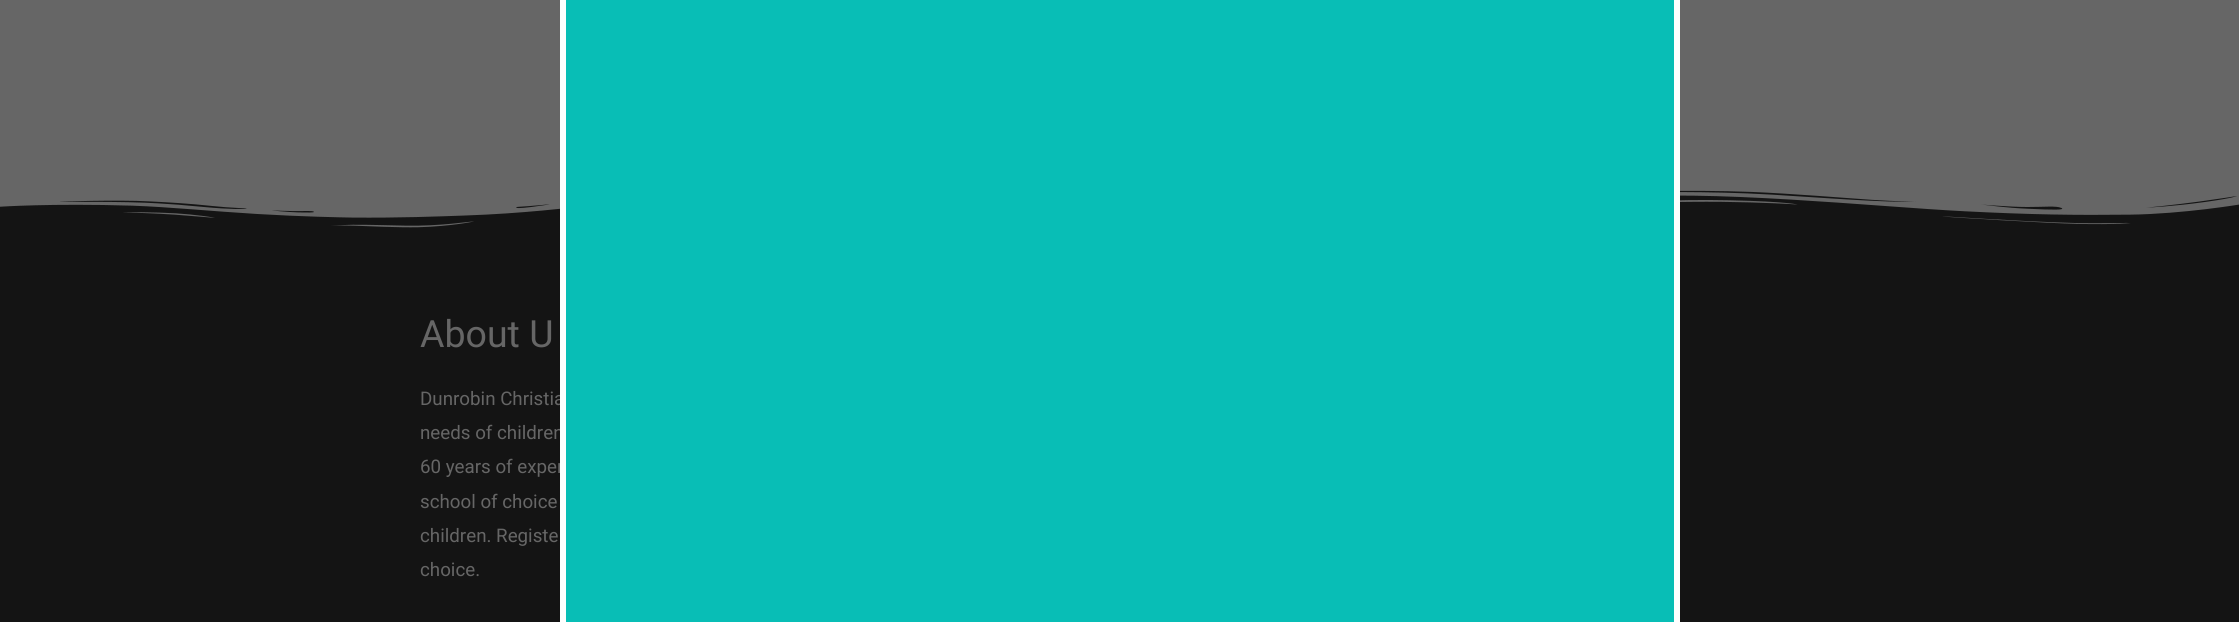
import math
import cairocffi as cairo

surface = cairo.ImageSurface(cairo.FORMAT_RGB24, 2239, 622)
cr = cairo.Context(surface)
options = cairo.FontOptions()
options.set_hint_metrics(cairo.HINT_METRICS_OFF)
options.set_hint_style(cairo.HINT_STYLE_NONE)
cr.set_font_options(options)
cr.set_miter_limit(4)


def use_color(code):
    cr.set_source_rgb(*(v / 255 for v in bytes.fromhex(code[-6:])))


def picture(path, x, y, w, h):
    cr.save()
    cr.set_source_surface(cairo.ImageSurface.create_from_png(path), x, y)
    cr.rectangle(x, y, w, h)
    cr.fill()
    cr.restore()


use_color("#666666")
cr.paint()
use_color("#141414")
cr.rectangle(0, 190, 2239, 432)
cr.fill()
picture("img1.png", 0, 184, 2239, 44)
cr.select_font_face("Roboto")
cr.set_font_size(37.5)
use_color("#666666")
cr.move_to(420, 347)
cr.show_text("About U")
cr.set_font_size(18.75)
cr.move_to(420, 405)
cr.show_text("Dunrobin Christia")
cr.move_to(420, 439)
cr.show_text("needs of children")
cr.move_to(420, 473)
cr.show_text("60 years of exper")
cr.move_to(420, 508)
cr.show_text("school of choice")
cr.move_to(420, 542)
cr.show_text("children. Registe")
cr.move_to(420, 576)
cr.show_text("choice.")
use_color("#08beb6")
cr.rectangle(563, -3, 1114, 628)
cr.fill_preserve()
use_color("#ffffff")
cr.set_line_width(6)
cr.stroke()
surface.write_to_png("result.png")
